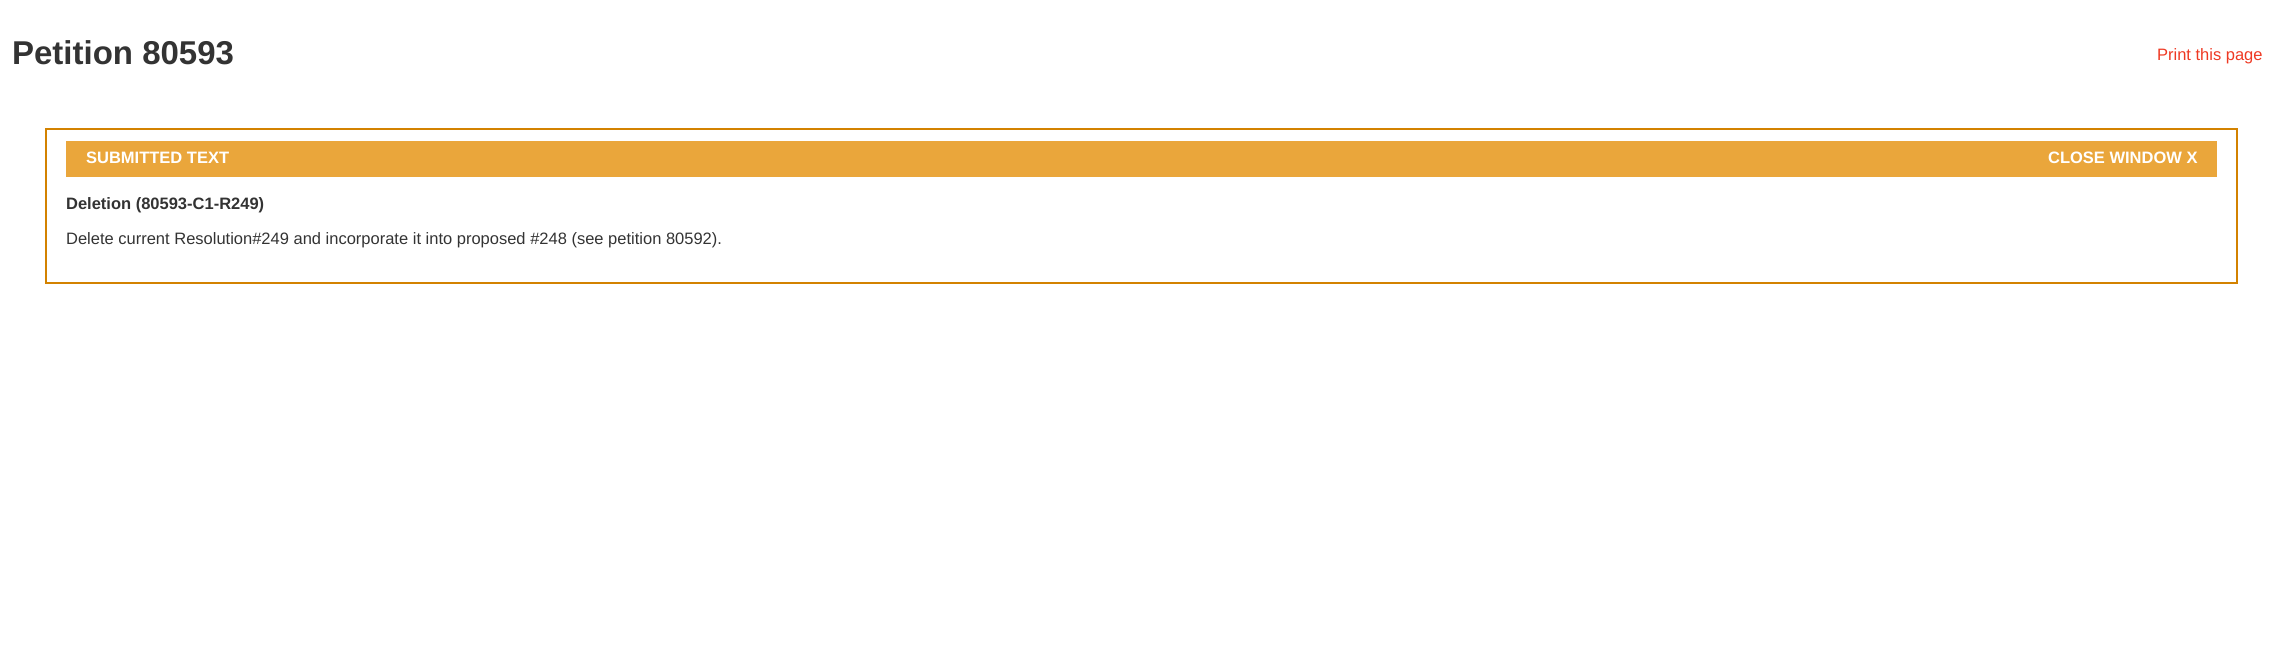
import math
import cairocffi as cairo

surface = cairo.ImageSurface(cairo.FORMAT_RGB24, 2280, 652)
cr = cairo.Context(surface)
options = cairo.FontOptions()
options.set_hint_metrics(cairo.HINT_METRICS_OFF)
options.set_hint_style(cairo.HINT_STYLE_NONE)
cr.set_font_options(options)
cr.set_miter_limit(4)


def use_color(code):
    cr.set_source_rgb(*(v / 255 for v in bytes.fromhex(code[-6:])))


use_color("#ffffff")
cr.paint()
cr.select_font_face("Liberation Sans", cairo.FONT_SLANT_NORMAL, cairo.FONT_WEIGHT_BOLD)
cr.set_font_size(33)
use_color("#333333")
cr.move_to(12, 64)
cr.show_text("Petition 80593")
cr.select_font_face("Liberation Sans")
cr.set_font_size(16.5)
use_color("#ee3923")
cr.move_to(2157, 60)
cr.show_text("Print this page")
cr.rectangle(46, 129, 2191, 154)
use_color("#d38200")
cr.stroke()
use_color("#eaa63b")
cr.rectangle(66, 141, 2151, 36)
cr.fill()
cr.select_font_face("Liberation Sans", cairo.FONT_SLANT_NORMAL, cairo.FONT_WEIGHT_BOLD)
use_color("#ffffff")
cr.move_to(86, 163)
cr.show_text("SUBMITTED TEXT")
cr.move_to(2048, 163)
cr.show_text("CLOSE WINDOW X")
use_color("#333333")
cr.move_to(66, 209)
cr.show_text("Deletion (80593-C1-R249)")
cr.select_font_face("Liberation Sans")
cr.move_to(66, 244)
cr.show_text("Delete current Resolution#249 and incorporate it into proposed #248 (see petition 80592).")
surface.write_to_png("result.png")
